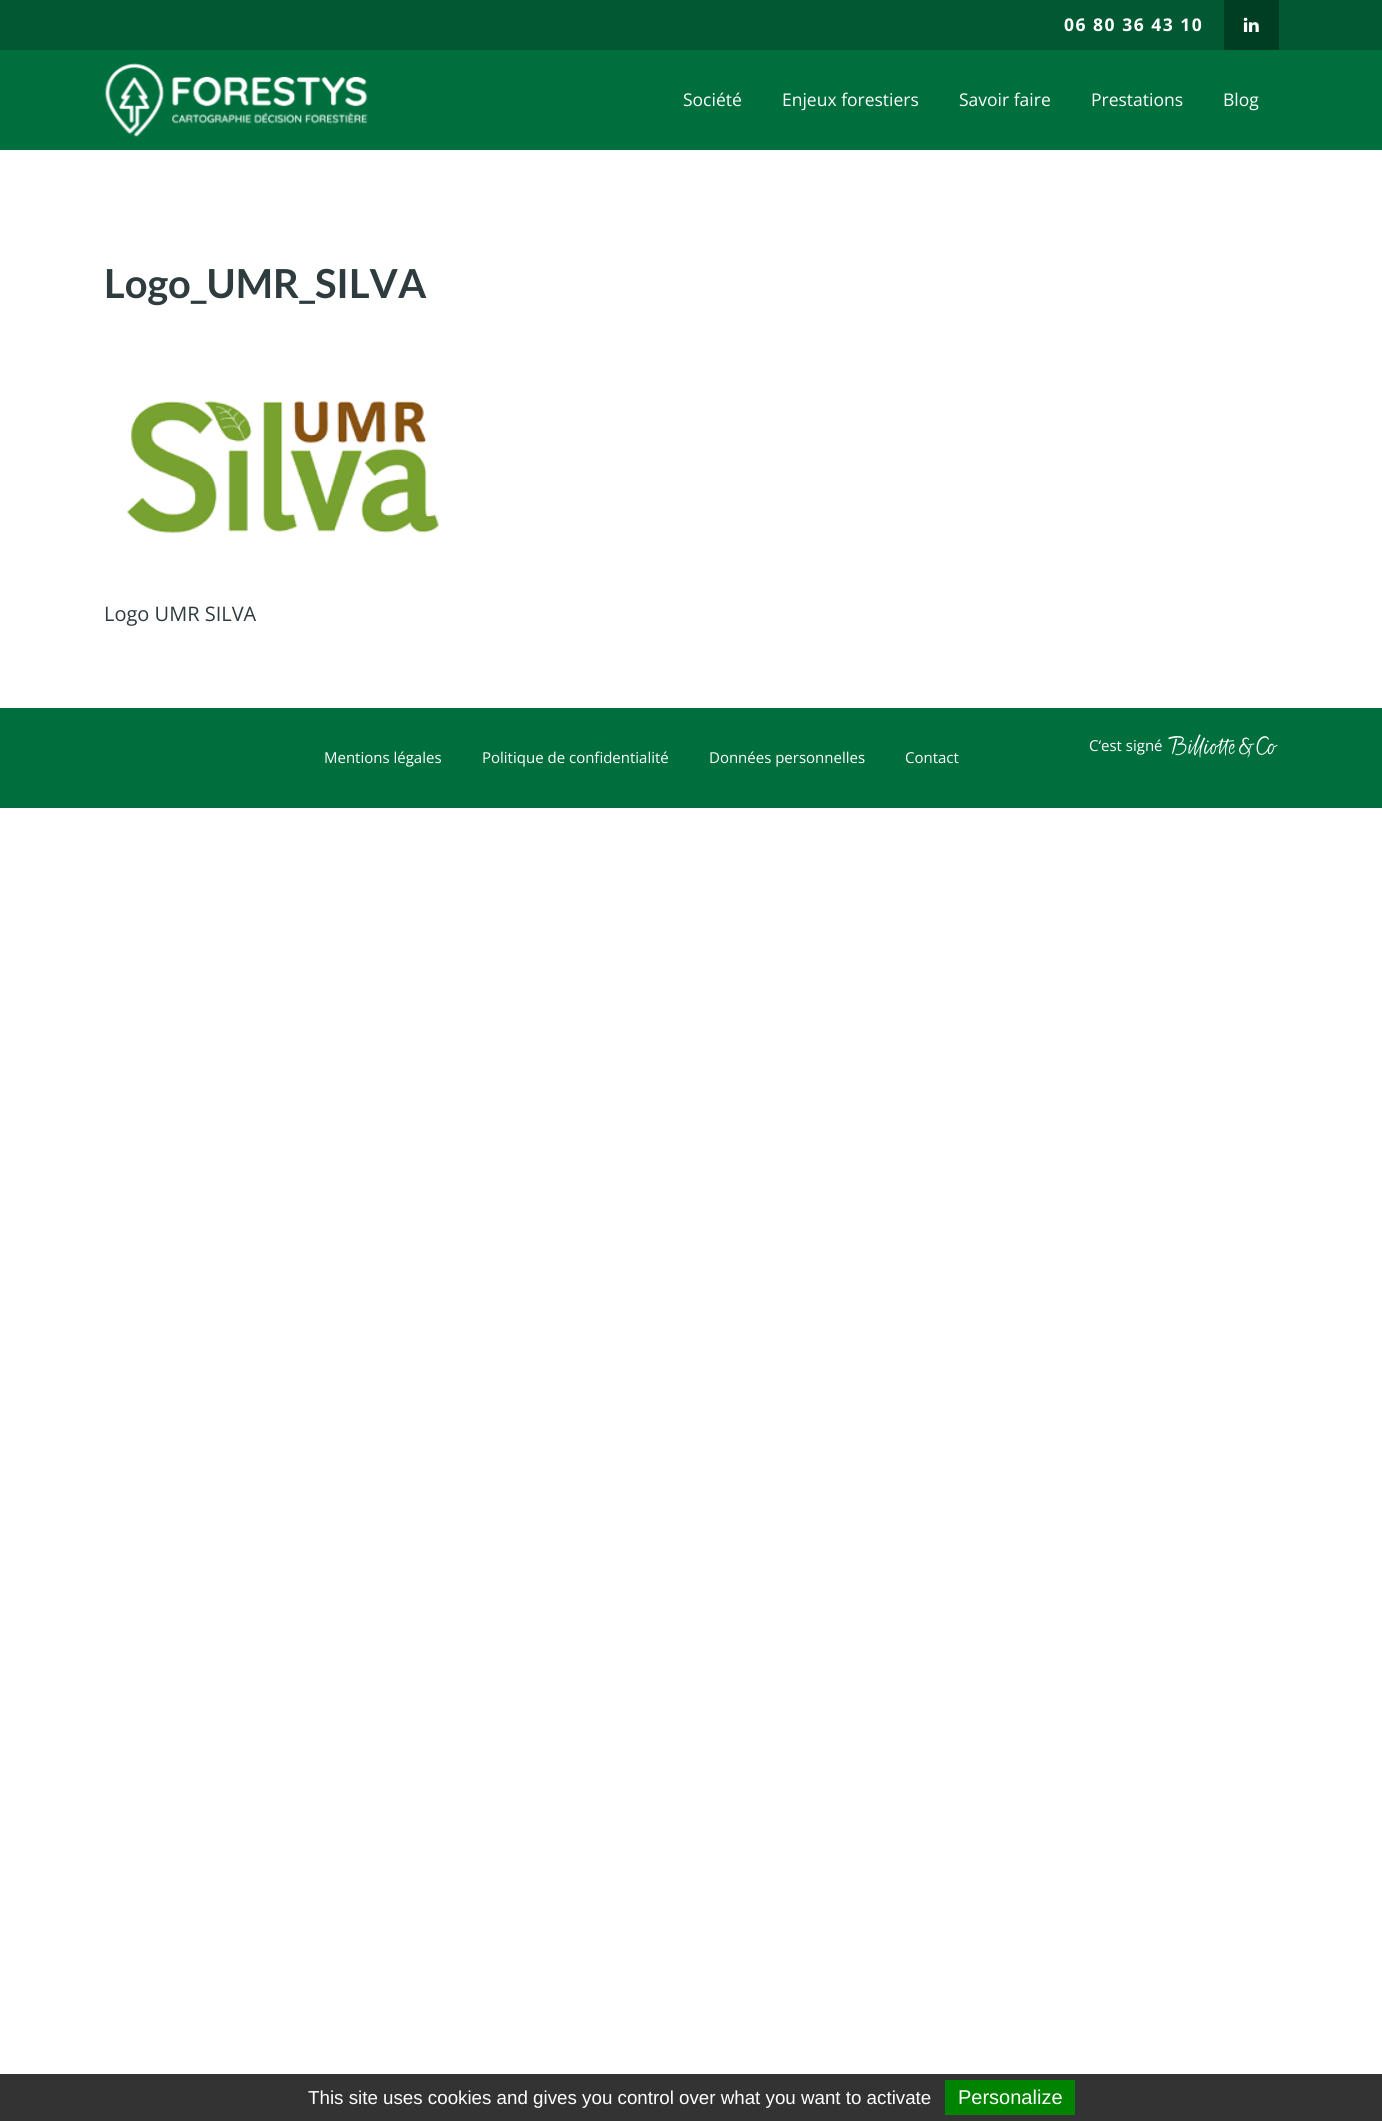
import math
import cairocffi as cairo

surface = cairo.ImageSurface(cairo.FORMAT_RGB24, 1382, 2121)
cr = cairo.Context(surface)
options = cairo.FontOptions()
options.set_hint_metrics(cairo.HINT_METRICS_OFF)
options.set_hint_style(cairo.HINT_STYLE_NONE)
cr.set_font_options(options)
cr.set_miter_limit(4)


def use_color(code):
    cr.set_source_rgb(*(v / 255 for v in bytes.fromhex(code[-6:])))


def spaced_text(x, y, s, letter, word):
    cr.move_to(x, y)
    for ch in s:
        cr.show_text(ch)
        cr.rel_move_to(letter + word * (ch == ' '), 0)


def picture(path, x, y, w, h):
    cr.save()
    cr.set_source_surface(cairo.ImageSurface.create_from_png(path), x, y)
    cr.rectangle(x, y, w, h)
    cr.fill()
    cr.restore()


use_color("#ffffff")
cr.paint()
use_color("#006f3e")
cr.rectangle(0, 50, 1382, 100)
cr.fill()
use_color("#005932")
cr.rectangle(0, 0, 1382, 50)
cr.fill()
cr.select_font_face("Open Sans", cairo.FONT_SLANT_NORMAL, cairo.FONT_WEIGHT_BOLD)
cr.set_font_size(17.5)
use_color("#ffffff")
spaced_text(1064, 31, "06 80 36 43 10", 1.5, 0)
use_color("#003e23")
cr.rectangle(1224, 0, 55, 50)
cr.fill()
picture("img1.png", 1243, 17, 16, 15)
picture("img2.png", 105, 63, 263, 74)
cr.select_font_face("Open Sans")
use_color("#ffffff")
cr.move_to(683, 106)
cr.show_text("Société")
cr.move_to(782, 106)
cr.show_text("Enjeux forestiers")
cr.move_to(959, 106)
cr.show_text("Savoir faire")
cr.move_to(1091, 106)
cr.show_text("Prestations")
cr.move_to(1223, 106)
cr.show_text("Blog")
cr.select_font_face("Lato", cairo.FONT_SLANT_NORMAL, cairo.FONT_WEIGHT_BOLD)
cr.set_font_size(40)
use_color("#2e3c40")
cr.move_to(104, 298)
cr.show_text("Logo_UMR_SILVA")
picture("img3.png", 127, 401, 312, 133)
cr.select_font_face("Open Sans")
cr.set_font_size(20)
cr.move_to(104, 621)
cr.show_text("Logo UMR SILVA")
use_color("#006f3e")
cr.rectangle(0, 708, 1382, 100)
cr.fill()
cr.set_font_size(15)
use_color("#ffffff")
cr.move_to(1089, 751)
cr.show_text("C‘est signé")
picture("img4.png", 1168, 734, 110, 24)
cr.move_to(324, 763)
cr.show_text("Mentions légales")
cr.move_to(482, 763)
cr.show_text("Politique de confidentialité")
cr.move_to(709, 763)
cr.show_text("Données personnelles")
cr.move_to(905, 763)
cr.show_text("Contact")
use_color("#333333")
cr.rectangle(0, 2074, 1382, 47)
cr.fill()
cr.select_font_face("Liberation Sans")
cr.set_font_size(18.75)
use_color("#ffffff")
cr.move_to(308, 2104)
cr.show_text("This site uses cookies and gives you control over what you want to activate")
use_color("#008300")
cr.rectangle(945, 2080, 130, 35)
cr.fill()
cr.set_font_size(20)
use_color("#ffffff")
cr.move_to(958, 2104)
cr.show_text("Personalize")
surface.write_to_png("result.png")
